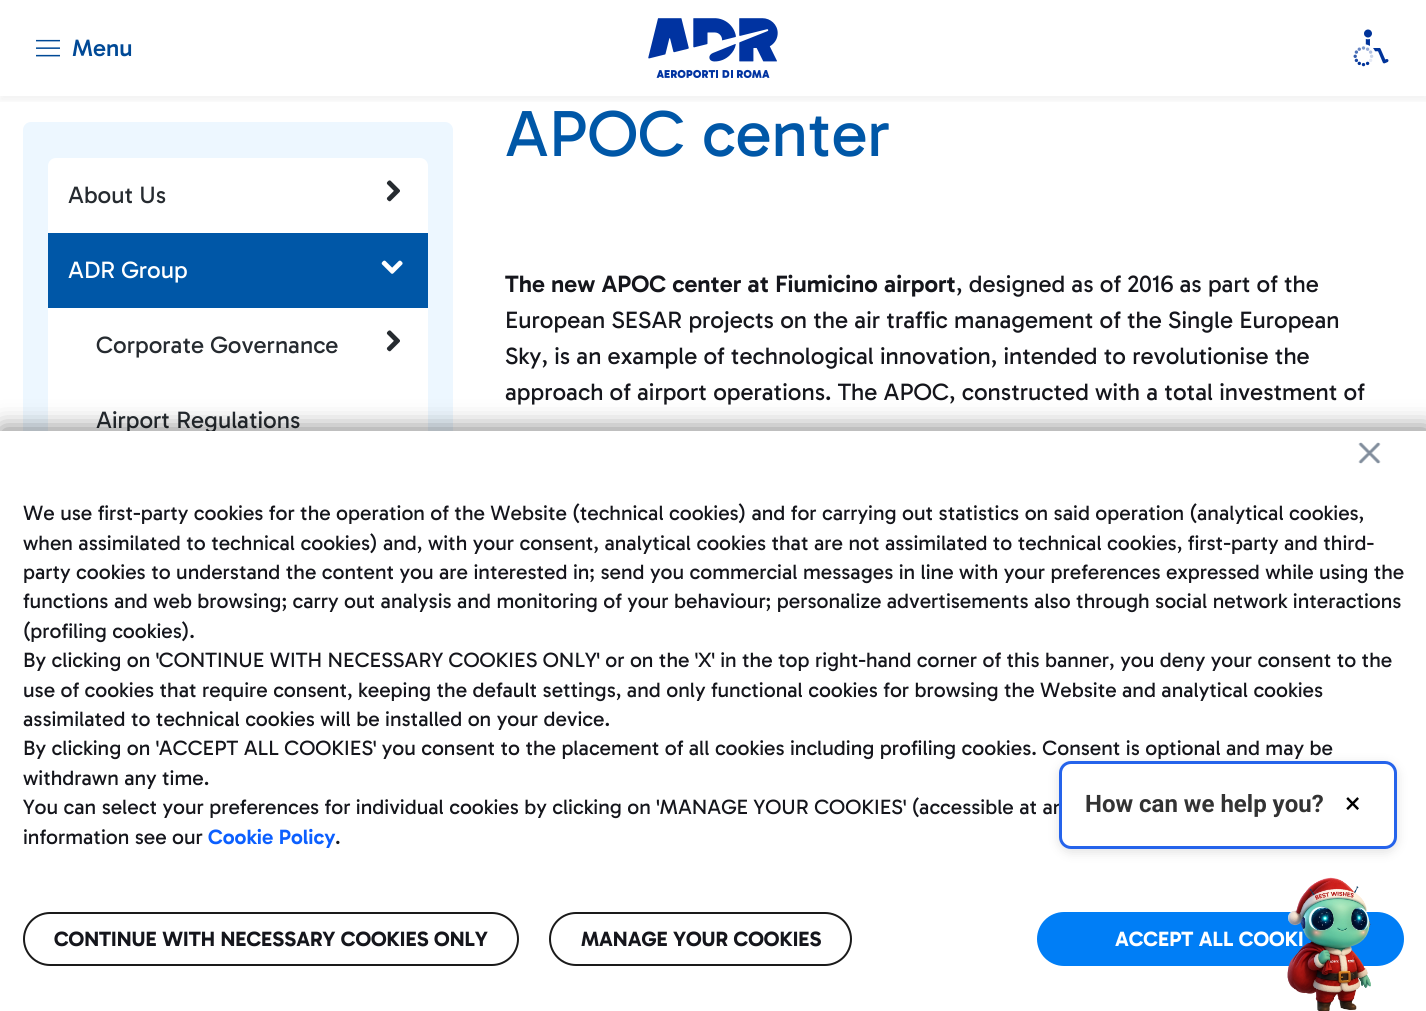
import math
import cairocffi as cairo

surface = cairo.ImageSurface(cairo.FORMAT_RGB24, 1426, 1011)
cr = cairo.Context(surface)
options = cairo.FontOptions()
options.set_hint_metrics(cairo.HINT_METRICS_OFF)
options.set_hint_style(cairo.HINT_STYLE_NONE)
cr.set_font_options(options)
cr.set_miter_limit(4)


def use_color(code):
    cr.set_source_rgb(*(v / 255 for v in bytes.fromhex(code[-6:])))


def round_rect(x, y, w, h, r):
    cr.new_sub_path()
    for i, (u, v) in enumerate([(x + w - r, y + h - r), (x + r, y + h - r), (x + r, y + r), (x + w - r, y + r)]):
        cr.arc(u, v, r, i * math.pi / 2, (i + 1) * math.pi / 2)
    cr.close_path()


def shadow(x, y, w, h, r, blur, alpha):
    cr.push_group_with_content(cairo.CONTENT_ALPHA)
    cr.set_operator(cairo.OPERATOR_SOURCE)
    for i in range(15, -16, -2):
        e = blur * i / 6
        if min(w, h) + 2 * e > 0:
            cr.set_source_rgba(0, 0, 0, alpha * math.erfc((i - 1) / 8.5) / 2)
            round_rect(x - e, y - e, w + 2 * e, h + 2 * e, max(0, min(r + e + blur * .6, min(w, h) / 2 + e)))
            cr.fill()
    cr.mask(cr.pop_group())


def picture(path, x, y, w, h):
    cr.save()
    cr.set_source_surface(cairo.ImageSurface.create_from_png(path), x, y)
    cr.rectangle(x, y, w, h)
    cr.fill()
    cr.restore()


use_color("#ffffff")
cr.paint()
cr.save()
cr.rectangle(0, 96, 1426, 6)
cr.clip()
use_color("#000000")
shadow(0, 5, 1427, 96, 0, 3, 0.05)
cr.restore()
picture("img1.png", 36, 39, 24, 18)
cr.select_font_face("Gabarito Medium")
cr.set_font_size(24)
use_color("#004996")
cr.move_to(72, 56)
cr.show_text("Menu")
picture("img2.png", 648, 18, 130, 60)
picture("img3.png", 1353, 29, 36, 38)
use_color("#edf7ff")
round_rect(23, 122, 430, 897, 8)
cr.fill()
use_color("#ffffff")
round_rect(48, 158, 380, 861, 8)
cr.fill()
cr.select_font_face("Gabarito")
use_color("#262b30")
cr.move_to(68, 203)
cr.show_text("About Us")
picture("img4.png", 386, 180, 14, 22)
use_color("#0057a7")
cr.rectangle(48, 233, 380, 75)
cr.fill()
use_color("#ffffff")
cr.move_to(68, 278)
cr.show_text("ADR Group")
picture("img5.png", 381, 260, 22, 14)
use_color("#262b30")
cr.move_to(96, 353)
cr.show_text("Corporate Governance")
picture("img4.png", 386, 330, 14, 22)
cr.move_to(96, 428)
cr.show_text("Airport Regulations")
cr.set_font_size(66)
use_color("#0057a7")
cr.move_to(505, 156)
cr.show_text("APOC center")
cr.select_font_face("Gabarito SemiBold")
cr.set_font_size(24)
use_color("#15161c")
cr.move_to(505, 292)
cr.show_text("The new APOC center at Fiumicino airport")
cr.select_font_face("Gabarito")
cr.move_to(956, 292)
cr.show_text(", designed as of 2016 as part of the")
cr.move_to(505, 328)
cr.show_text("European SESAR projects on the air traffic management of the Single European")
cr.move_to(505, 364)
cr.show_text("Sky, is an example of technological innovation, intended to revolutionise the")
cr.move_to(505, 400)
cr.show_text("approach of airport operations. The APOC, constructed with a total investment of")
use_color("#000000")
shadow(2, 429, 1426, 581, 0, 12, 0.5)
use_color("#ffffff")
cr.rectangle(0, 431, 1426, 580)
cr.fill()
picture("img6.png", 1358, 442, 23, 22)
cr.set_font_size(21)
use_color("#15161c")
cr.move_to(23, 520)
cr.show_text("We use first-party cookies for the operation of the Website (technical cookies) and for carrying out statistics on said operation (analytical cookies,")
cr.move_to(23, 550)
cr.show_text("when assimilated to technical cookies) and, with your consent, analytical cookies that are not assimilated to technical cookies, first-party and third-")
cr.move_to(23, 579)
cr.show_text("party cookies to understand the content you are interested in; send you commercial messages in line with your preferences expressed while using the")
cr.move_to(23, 608)
cr.show_text("functions and web browsing; carry out analysis and monitoring of your behaviour; personalize advertisements also through social network interactions")
cr.move_to(23, 638)
cr.show_text("(profiling cookies).")
cr.move_to(23, 667)
cr.show_text("By clicking on 'CONTINUE WITH NECESSARY COOKIES ONLY' or on the 'X' in the top right-hand corner of this banner, you deny your consent to the")
cr.move_to(23, 697)
cr.show_text("use of cookies that require consent, keeping the default settings, and only functional cookies for browsing the Website and analytical cookies")
cr.move_to(23, 726)
cr.show_text("assimilated to technical cookies will be installed on your device.")
cr.move_to(23, 755)
cr.show_text("By clicking on 'ACCEPT ALL COOKIES' you consent to the placement of all cookies including profiling cookies. Consent is optional and may be")
cr.move_to(23, 785)
cr.show_text("withdrawn any time.")
cr.move_to(23, 814)
cr.show_text("You can select your preferences for individual cookies by clicking on 'MANAGE YOUR COOKIES' (accessible at an")
cr.move_to(23, 844)
cr.show_text("information see our")
cr.select_font_face("Gabarito SemiBold")
use_color("#0b5fff")
cr.move_to(208, 844)
cr.show_text("Cookie Policy")
cr.select_font_face("Gabarito")
use_color("#15161c")
cr.move_to(335, 844)
cr.show_text(".")
round_rect(24, 913, 494, 52, 26)
use_color("#1a1a1a")
cr.stroke()
cr.select_font_face("Gabarito", cairo.FONT_SLANT_NORMAL, cairo.FONT_WEIGHT_BOLD)
use_color("#15161c")
cr.move_to(54, 946)
cr.show_text("CONTINUE WITH NECESSARY COOKIES ONLY")
round_rect(550, 913, 301, 52, 26)
use_color("#1a1a1a")
cr.stroke()
use_color("#15161c")
cr.move_to(581, 946)
cr.show_text("MANAGE YOUR COOKIES")
use_color("#007ef6")
round_rect(1038, 913, 365, 52, 26)
cr.fill_preserve()
cr.stroke()
use_color("#ffffff")
cr.move_to(1115, 946)
cr.show_text("ACCEPT ALL COOKI")
use_color("#000000")
shadow(1059, 764, 338, 88, 12, 6, 0.12)
use_color("#ffffff")
round_rect(1060.5, 762.5, 335, 85, 10.5)
cr.fill_preserve()
use_color("#2563eb")
cr.set_line_width(3)
cr.stroke()
cr.select_font_face("Roboto", cairo.FONT_SLANT_NORMAL, cairo.FONT_WEIGHT_BOLD)
cr.set_font_size(24)
use_color("#333333")
cr.move_to(1085, 812)
cr.show_text("How can we help you?")
cr.select_font_face("Roboto")
cr.set_font_size(29)
use_color("#000000")
cr.move_to(1345, 813)
cr.show_text("×")
picture("img7.png", 1287, 877, 84, 134)
surface.write_to_png("result.png")
